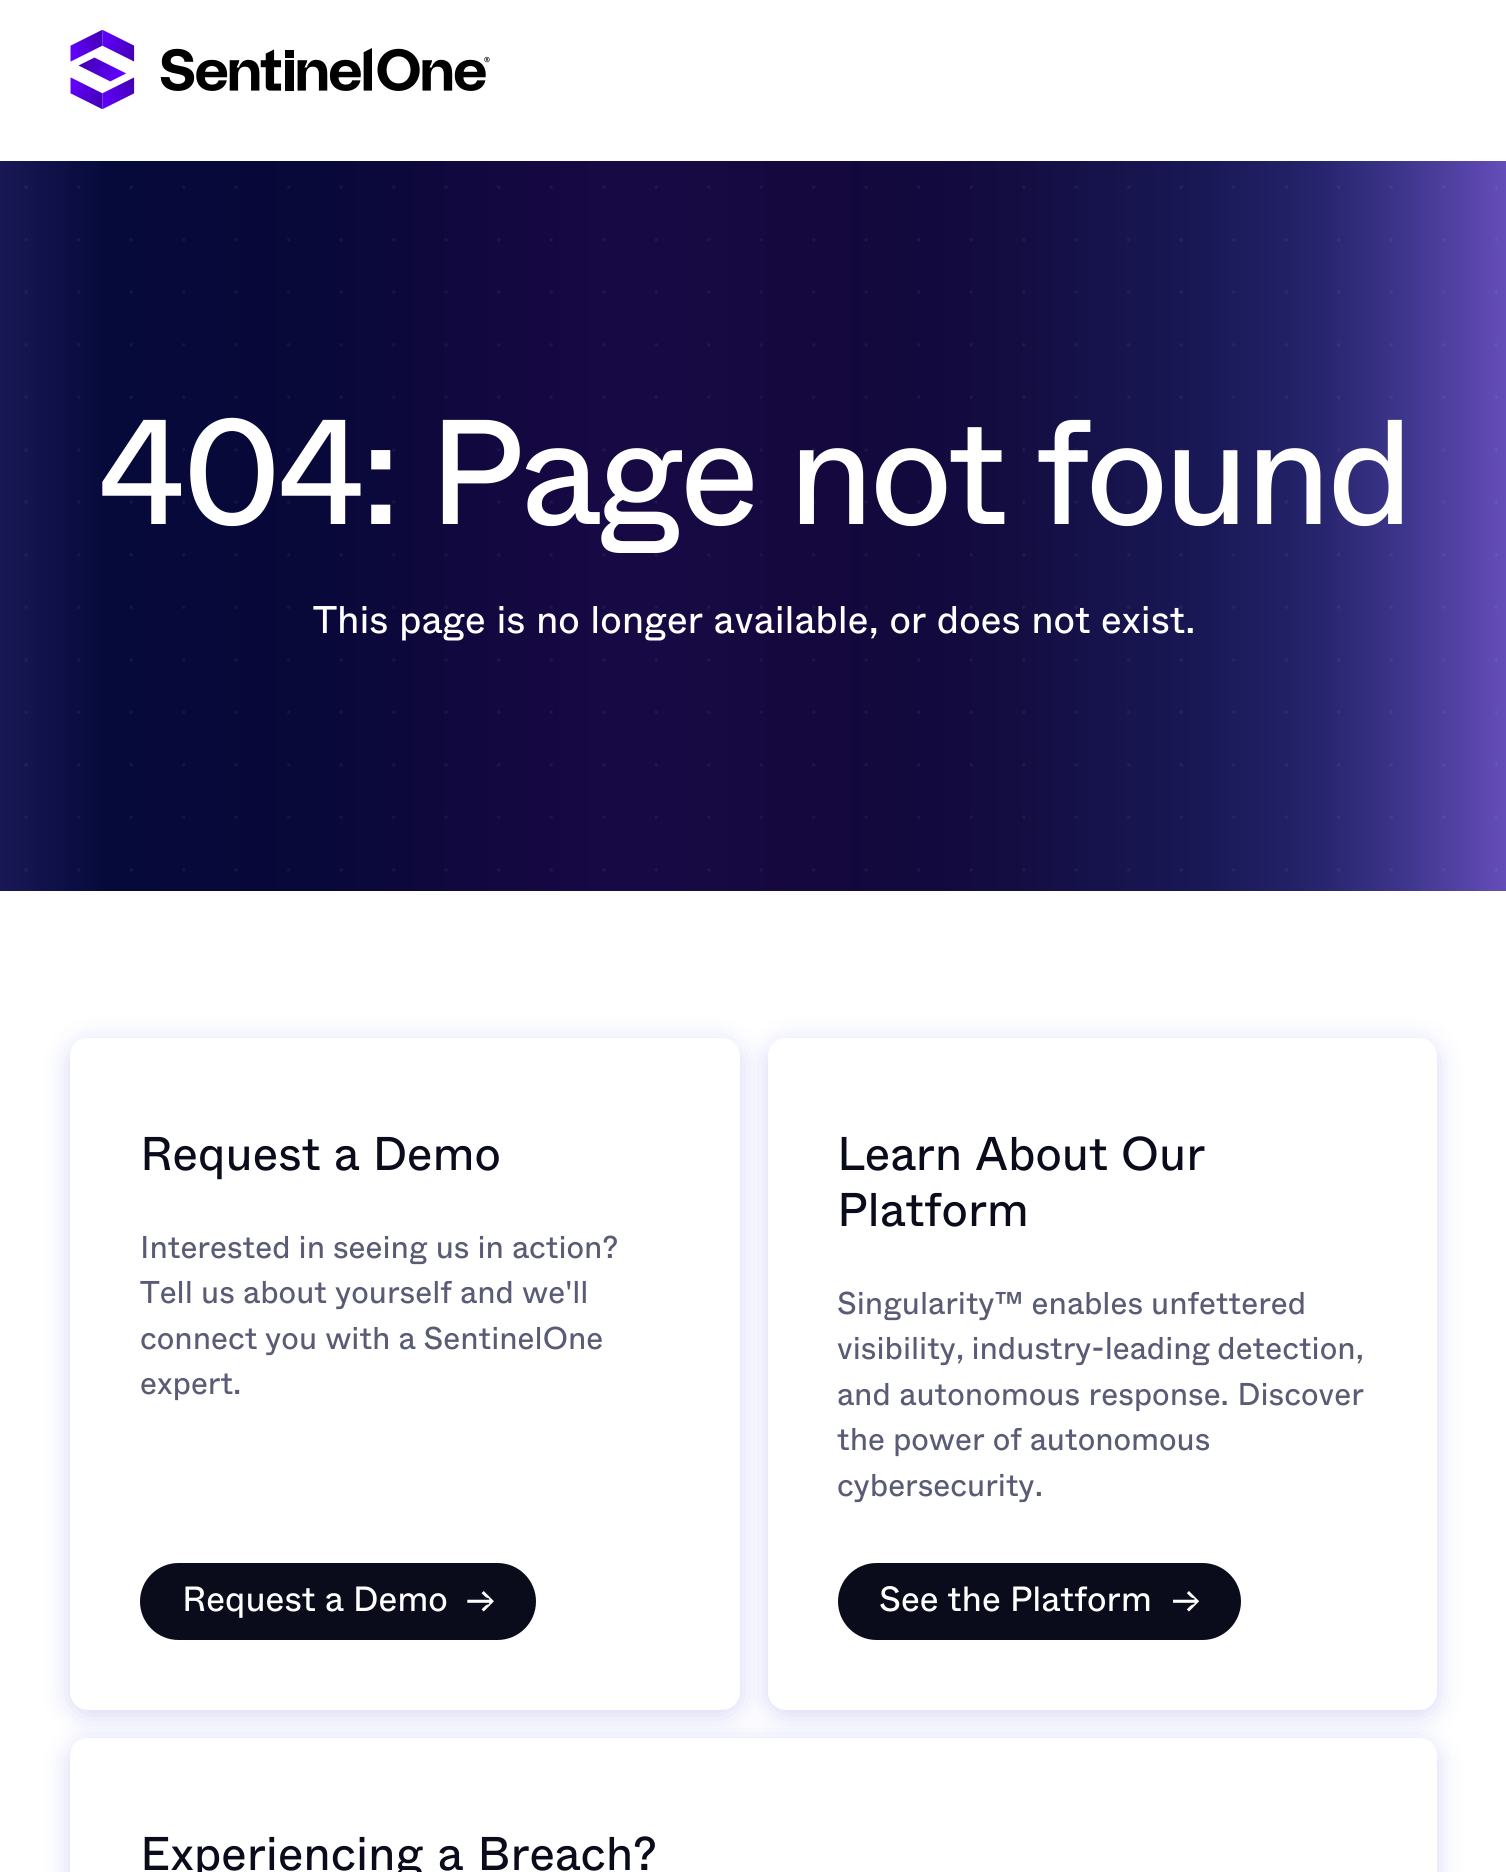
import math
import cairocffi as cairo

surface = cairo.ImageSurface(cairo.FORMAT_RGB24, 1506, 1872)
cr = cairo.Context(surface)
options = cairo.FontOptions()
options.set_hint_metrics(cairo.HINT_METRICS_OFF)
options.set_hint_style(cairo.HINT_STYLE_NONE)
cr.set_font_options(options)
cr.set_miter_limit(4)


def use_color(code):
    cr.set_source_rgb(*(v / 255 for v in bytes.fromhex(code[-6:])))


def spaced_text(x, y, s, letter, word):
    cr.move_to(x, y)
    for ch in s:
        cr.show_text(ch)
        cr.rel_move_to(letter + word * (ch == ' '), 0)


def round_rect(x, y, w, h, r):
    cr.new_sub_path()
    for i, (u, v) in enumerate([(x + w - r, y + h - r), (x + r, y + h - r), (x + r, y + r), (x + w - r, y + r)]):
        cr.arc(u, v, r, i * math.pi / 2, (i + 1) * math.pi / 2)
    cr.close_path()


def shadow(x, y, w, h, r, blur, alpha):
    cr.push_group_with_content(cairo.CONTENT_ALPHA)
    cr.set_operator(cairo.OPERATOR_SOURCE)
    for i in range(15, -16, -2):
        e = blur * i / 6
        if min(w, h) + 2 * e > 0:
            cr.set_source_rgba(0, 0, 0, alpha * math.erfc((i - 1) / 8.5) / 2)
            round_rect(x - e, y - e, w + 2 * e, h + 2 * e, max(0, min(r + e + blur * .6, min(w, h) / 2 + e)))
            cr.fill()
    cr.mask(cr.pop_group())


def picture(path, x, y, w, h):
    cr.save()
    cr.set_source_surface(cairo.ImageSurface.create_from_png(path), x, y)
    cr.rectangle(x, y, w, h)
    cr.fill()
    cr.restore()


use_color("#ffffff")
cr.paint()
picture("img1.png", 70, 30, 420, 79)
gradient = cairo.LinearGradient(0, 526, 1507, 526)
gradient.add_color_stop_rgba(0, 0.098, 0.094, 0.337, 1)
gradient.add_color_stop_rgba(0.07, 0.024, 0.039, 0.231, 1)
gradient.add_color_stop_rgba(0.13, 0.024, 0.035, 0.224, 1)
gradient.add_color_stop_rgba(0.2, 0.031, 0.031, 0.224, 1)
gradient.add_color_stop_rgba(0.27, 0.051, 0.031, 0.235, 1)
gradient.add_color_stop_rgba(0.33, 0.075, 0.031, 0.251, 1)
gradient.add_color_stop_rgba(0.4, 0.09, 0.035, 0.267, 1)
gradient.add_color_stop_rgba(0.47, 0.09, 0.035, 0.259, 1)
gradient.add_color_stop_rgba(0.53, 0.082, 0.031, 0.243, 1)
gradient.add_color_stop_rgba(0.6, 0.071, 0.035, 0.239, 1)
gradient.add_color_stop_rgba(0.67, 0.075, 0.051, 0.255, 1)
gradient.add_color_stop_rgba(0.73, 0.086, 0.071, 0.294, 1)
gradient.add_color_stop_rgba(0.8, 0.098, 0.094, 0.337, 1)
gradient.add_color_stop_rgba(0.87, 0.145, 0.137, 0.416, 1)
gradient.add_color_stop_rgba(0.93, 0.239, 0.208, 0.545, 1)
gradient.add_color_stop_rgba(1, 0.396, 0.302, 0.725, 1)
cr.set_source(gradient)
cr.rectangle(0, 161, 1506, 730)
cr.fill()
cr.new_path()
cr.move_to(26.2, 187.2)
cr.line_to(1496.6, 187.2)
cr.set_source_rgba(1, 1, 1, 0.05)
cr.set_line_width(3.5)
cr.set_line_cap(cairo.LINE_CAP_ROUND)
cr.set_dash([0, 52.5])
cr.stroke()
cr.new_path()
cr.move_to(26.2, 239.8)
cr.line_to(1496.6, 239.8)
cr.stroke()
cr.new_path()
cr.move_to(26.2, 292.2)
cr.line_to(1496.6, 292.2)
cr.stroke()
cr.new_path()
cr.move_to(26.2, 344.8)
cr.line_to(1496.6, 344.8)
cr.stroke()
cr.new_path()
cr.move_to(26.2, 397.2)
cr.line_to(1496.6, 397.2)
cr.stroke()
cr.new_path()
cr.move_to(26.2, 449.8)
cr.line_to(1496.6, 449.8)
cr.stroke()
cr.new_path()
cr.move_to(26.2, 502.2)
cr.line_to(1496.6, 502.2)
cr.stroke()
cr.new_path()
cr.move_to(26.2, 554.8)
cr.line_to(1496.6, 554.8)
cr.stroke()
cr.new_path()
cr.move_to(26.2, 607.2)
cr.line_to(1496.6, 607.2)
cr.stroke()
cr.new_path()
cr.move_to(26.2, 659.8)
cr.line_to(1496.6, 659.8)
cr.stroke()
cr.new_path()
cr.move_to(26.2, 712.2)
cr.line_to(1496.6, 712.2)
cr.stroke()
cr.new_path()
cr.move_to(26.2, 764.8)
cr.line_to(1496.6, 764.8)
cr.stroke()
cr.new_path()
cr.move_to(26.2, 817.2)
cr.line_to(1496.6, 817.2)
cr.stroke()
cr.new_path()
cr.move_to(26.2, 869.8)
cr.line_to(1496.6, 869.8)
cr.stroke()
cr.select_font_face("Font")
cr.set_font_size(148.75)
use_color("#ffffff")
spaced_text(98, 524, "404: Page not found", -4.5, -1)
cr.set_font_size(38.5)
spaced_text(313, 633, "This page is no longer available, or does not exist.", 0, 0.75)
use_color("#2631d1")
shadow(70, 1043, 670, 672, 18, 13, 0.2)
use_color("#ffffff")
round_rect(70, 1038, 670, 672, 18)
cr.fill()
cr.set_font_size(47.25)
use_color("#0b0c1b")
spaced_text(140, 1170, "Request a Demo", 0, 1)
cr.set_font_size(31.5)
use_color("#5a5c76")
cr.move_to(140, 1258)
cr.show_text("Interested in seeing us in action?")
spaced_text(140, 1303, "Tell us about yourself and we'll", 0, 0.25)
cr.move_to(140, 1349)
cr.show_text("connect you with a SentinelOne")
cr.move_to(140, 1394)
cr.show_text("expert.")
use_color("#0b0c1b")
round_rect(140, 1563, 396, 77, 38.5)
cr.fill()
cr.set_font_size(35)
use_color("#ffffff")
cr.move_to(182, 1611)
cr.show_text("Request a Demo")
picture("img2.png", 467, 1591, 27, 21)
use_color("#2631d1")
shadow(768, 1043, 669, 672, 18, 13, 0.2)
use_color("#ffffff")
round_rect(768, 1038, 669, 672, 18)
cr.fill()
cr.set_font_size(47.25)
use_color("#0b0c1b")
spaced_text(837, 1170, "Learn About Our", 0, 1)
cr.move_to(837, 1226)
cr.show_text("Platform")
cr.set_font_size(31.5)
use_color("#5a5c76")
cr.move_to(837, 1314)
cr.show_text("Singularity™ enables unfettered")
spaced_text(837, 1359, "visibility, industry-leading detection,", 0, -1)
spaced_text(837, 1405, "and autonomous response. Discover", 0, 0.5)
cr.move_to(837, 1450)
cr.show_text("the power of autonomous")
cr.move_to(837, 1496)
cr.show_text("cybersecurity.")
use_color("#0b0c1b")
round_rect(838, 1563, 403, 77, 38.5)
cr.fill()
cr.set_font_size(35)
use_color("#ffffff")
cr.move_to(879, 1611)
cr.show_text("See the Platform")
picture("img3.png", 1173, 1591, 27, 21)
use_color("#2631d1")
shadow(70, 1743, 1367, 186, 18, 13, 0.2)
use_color("#ffffff")
round_rect(70, 1738, 1367, 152, 18)
cr.fill()
cr.set_font_size(47.25)
use_color("#0b0c1b")
spaced_text(140, 1870, "Experiencing a Breach?", 0, 2)
surface.write_to_png("result.png")
